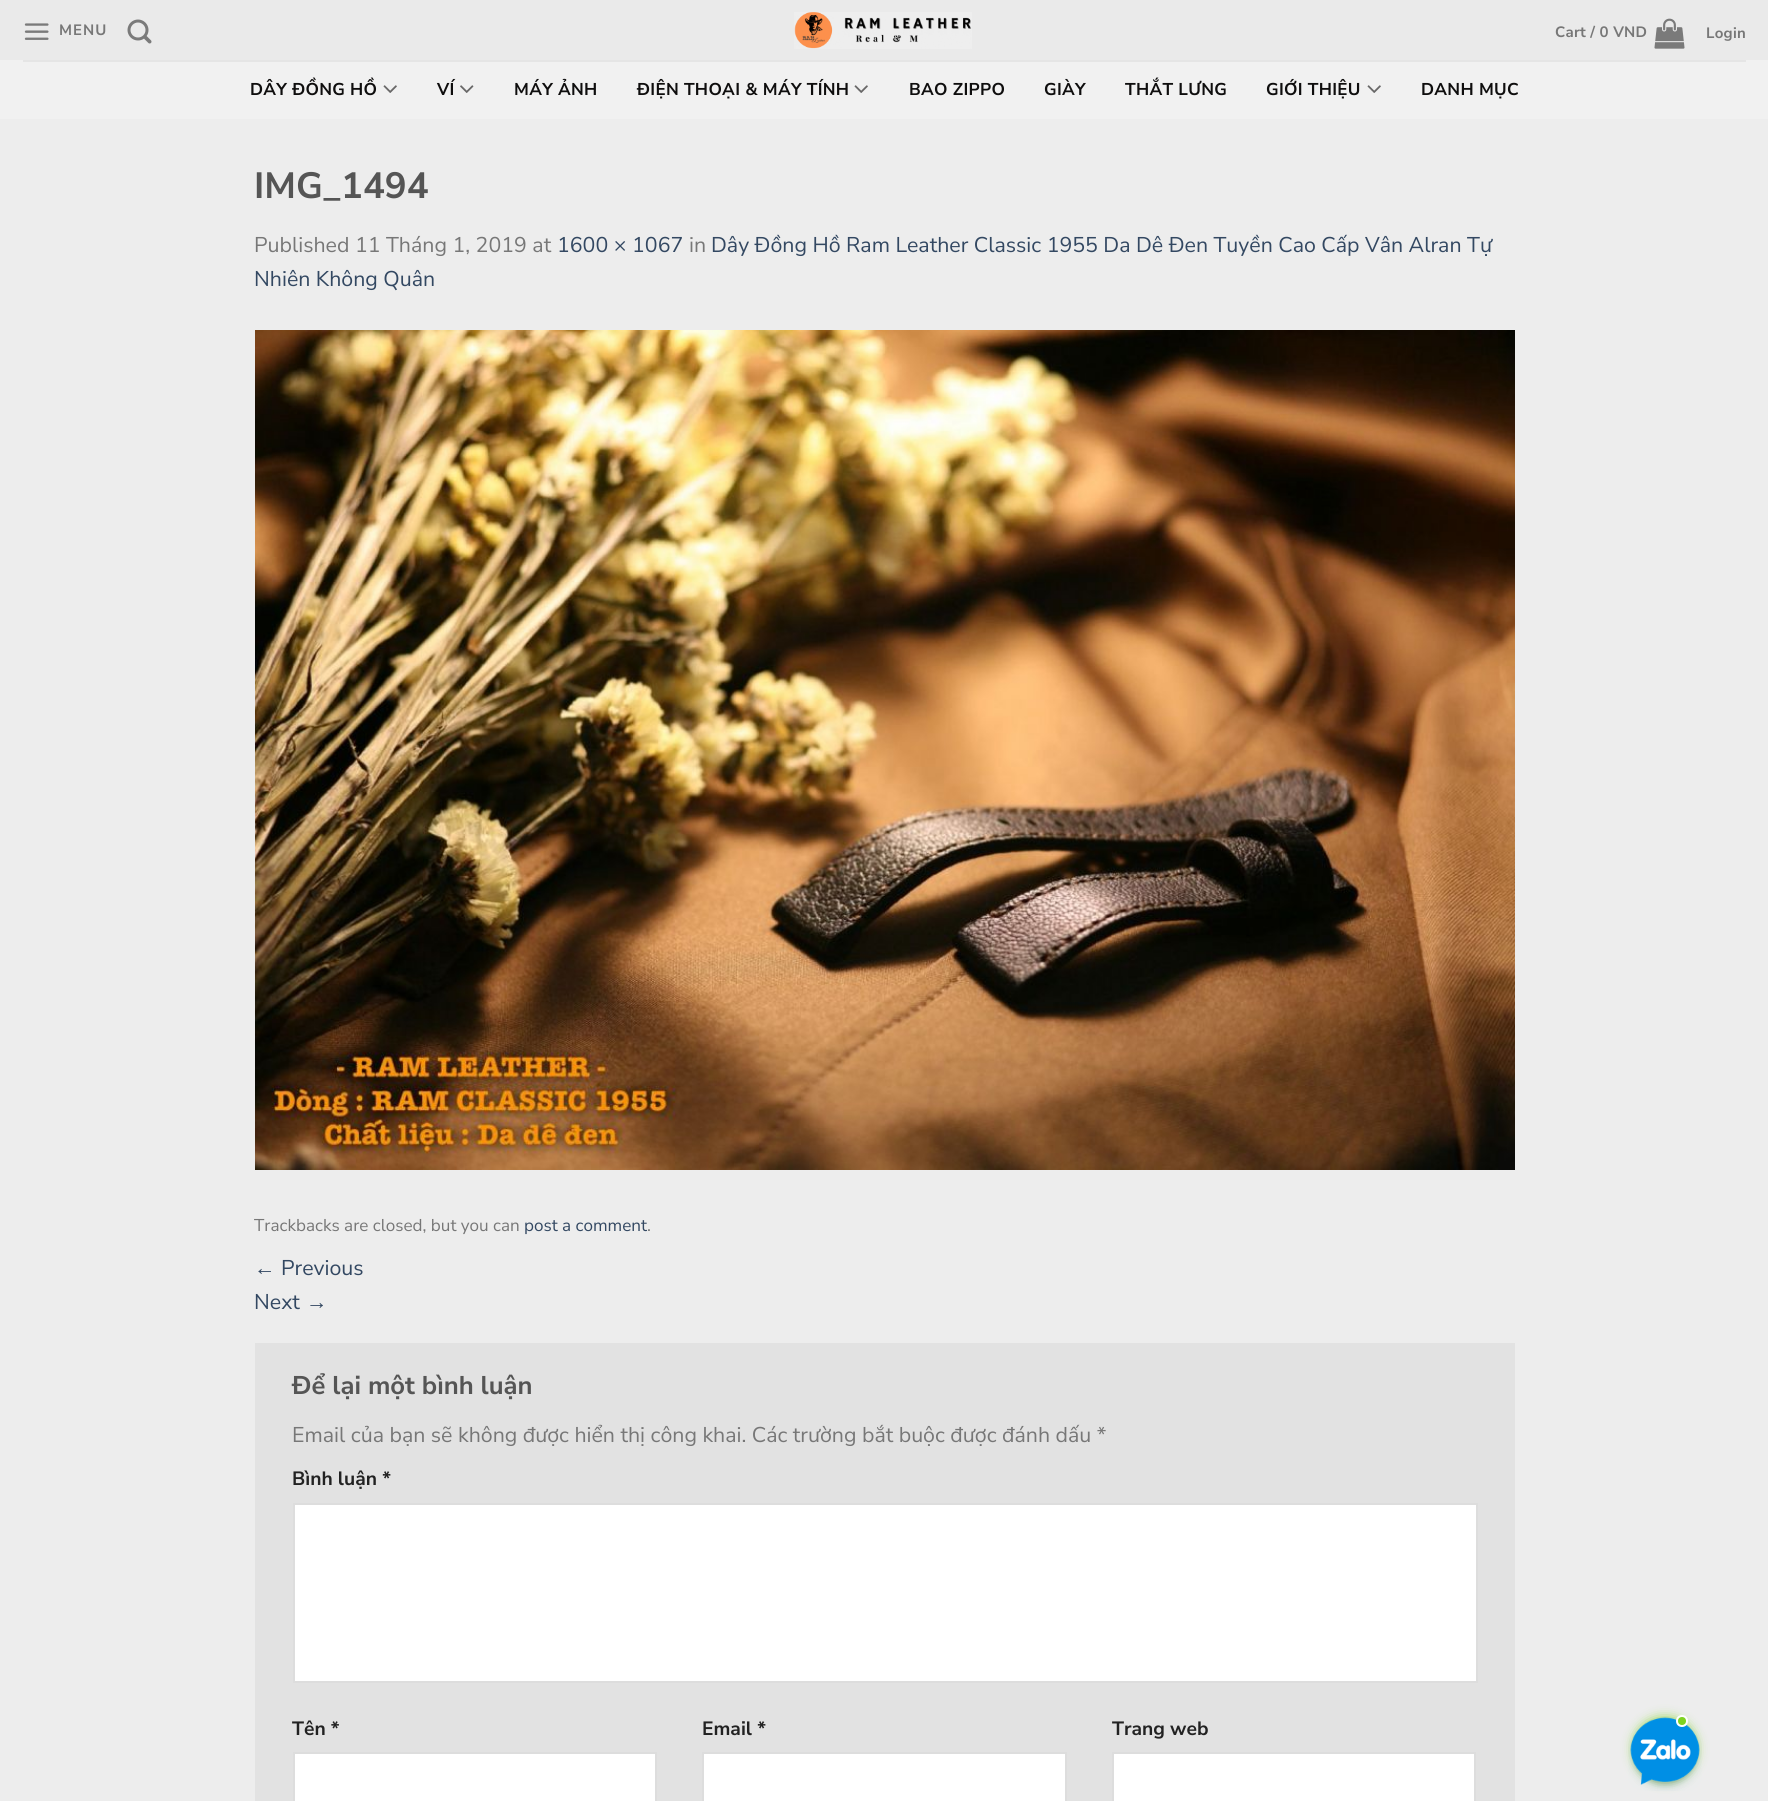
import math
import cairocffi as cairo

surface = cairo.ImageSurface(cairo.FORMAT_RGB24, 1768, 1801)
cr = cairo.Context(surface)
options = cairo.FontOptions()
options.set_hint_metrics(cairo.HINT_METRICS_OFF)
options.set_hint_style(cairo.HINT_STYLE_NONE)
cr.set_font_options(options)
cr.set_miter_limit(4)


def use_color(code):
    cr.set_source_rgb(*(v / 255 for v in bytes.fromhex(code[-6:])))


def spaced_text(x, y, s, letter, word):
    cr.move_to(x, y)
    for ch in s:
        cr.show_text(ch)
        cr.rel_move_to(letter + word * (ch == ' '), 0)


def round_rect(x, y, w, h, r):
    cr.new_sub_path()
    for i, (u, v) in enumerate([(x + w - r, y + h - r), (x + r, y + h - r), (x + r, y + r), (x + w - r, y + r)]):
        cr.arc(u, v, r, i * math.pi / 2, (i + 1) * math.pi / 2)
    cr.close_path()


def shadow(x, y, w, h, r, blur, alpha):
    cr.push_group_with_content(cairo.CONTENT_ALPHA)
    cr.set_operator(cairo.OPERATOR_SOURCE)
    for i in range(15, -16, -2):
        e = blur * i / 6
        if min(w, h) + 2 * e > 0:
            cr.set_source_rgba(0, 0, 0, alpha * math.erfc((i - 1) / 8.5) / 2)
            round_rect(x - e, y - e, w + 2 * e, h + 2 * e, max(0, min(r + e + blur * .6, min(w, h) / 2 + e)))
            cr.fill()
    cr.mask(cr.pop_group())


def picture(path, x, y, w, h):
    cr.save()
    cr.set_source_surface(cairo.ImageSurface.create_from_png(path), x, y)
    cr.rectangle(x, y, w, h)
    cr.fill()
    cr.restore()


use_color("#ededed")
cr.paint()
use_color("#eaeaea")
cr.rectangle(0, 0, 1768, 60)
cr.fill()
picture("img1.png", 24, 23, 25, 17)
cr.select_font_face("Nunito Sans", cairo.FONT_SLANT_NORMAL, cairo.FONT_WEIGHT_BOLD)
cr.set_font_size(15)
use_color("#777777")
spaced_text(59, 35, "MENU", 1, 0)
picture("img2.png", 127, 19, 25, 25)
picture("img3.png", 794, 12, 178, 37)
spaced_text(1555, 37, "Cart / 0 VND", 0.25, 0)
picture("img4.png", 1654, 18, 31, 31)
spaced_text(1706, 38, "Login", 0.25, 0)
use_color("#f1f1f1")
cr.rectangle(0, 60, 1768, 59)
cr.fill()
use_color("#e5e5e5")
cr.rectangle(23, 60, 1723, 2)
cr.fill()
cr.set_font_size(17.1)
use_color("#0f0e0e")
spaced_text(250, 95, "DÂY ĐỒNG HỒ", 0.3, 0)
picture("img5.png", 383, 85, 14, 8)
spaced_text(437, 95, "VÍ", 0.3, 0)
picture("img6.png", 460, 85, 14, 8)
spaced_text(514, 95, "MÁY ẢNH", 0.3, 0)
spaced_text(637, 95, "ĐIỆN THOẠI & MÁY TÍNH", 0.3, 0)
picture("img5.png", 854, 85, 14, 8)
spaced_text(909, 95, "BAO ZIPPO", 0.3, 0)
spaced_text(1044, 95, "GIÀY", 0.3, 0)
spaced_text(1125, 95, "THẮT LƯNG", 0.3, 0)
spaced_text(1266, 95, "GIỚI THIỆU", 0.3, 0)
picture("img5.png", 1367, 85, 14, 8)
spaced_text(1421, 95, "DANH MỤC", 0.3, 0)
cr.set_font_size(36.5)
use_color("#555555")
cr.move_to(254, 198)
cr.show_text("IMG_1494")
cr.select_font_face("Nunito Sans")
cr.set_font_size(21.35)
use_color("#777777")
cr.move_to(254, 252)
cr.show_text("Published 11 Tháng 1, 2019 at")
use_color("#334862")
cr.move_to(557, 252)
cr.show_text("1600 × 1067")
use_color("#777777")
cr.move_to(689, 252)
cr.show_text("in")
use_color("#334862")
cr.move_to(711, 252)
cr.show_text("Dây Đồng Hồ Ram Leather Classic 1955 Da Dê Đen Tuyền Cao Cấp Vân Alran Tự")
cr.move_to(254, 286)
cr.show_text("Nhiên Không Quân")
picture("img7.png", 255, 330, 1260, 840)
cr.set_font_size(17.1)
use_color("#777777")
cr.move_to(254, 1231)
cr.show_text("Trackbacks are closed, but you can")
use_color("#334862")
cr.move_to(524, 1231)
cr.show_text("post a comment")
use_color("#777777")
cr.move_to(647, 1231)
cr.show_text(".")
cr.select_font_face("Liberation Sans")
cr.set_font_size(21.35)
use_color("#334862")
cr.move_to(254, 1275)
cr.show_text("←")
cr.select_font_face("Nunito Sans")
cr.move_to(281, 1275)
cr.show_text("Previous")
cr.move_to(254, 1309)
cr.show_text("Next")
cr.select_font_face("Liberation Sans")
cr.move_to(306, 1309)
cr.show_text("→")
use_color("#e2e2e2")
cr.rectangle(255, 1343, 1260, 458)
cr.fill()
cr.select_font_face("Nunito Sans", cairo.FONT_SLANT_NORMAL, cairo.FONT_WEIGHT_BOLD)
cr.set_font_size(25.6)
use_color("#555555")
cr.move_to(292, 1394)
cr.show_text("Để lại một bình luận")
cr.select_font_face("Nunito Sans")
cr.set_font_size(21.35)
use_color("#777777")
cr.move_to(292, 1442)
cr.show_text("Email của bạn sẽ không được hiển thị công khai. Các trường bắt buộc được đánh dấu *")
cr.select_font_face("Nunito Sans", cairo.FONT_SLANT_NORMAL, cairo.FONT_WEIGHT_BOLD)
cr.set_font_size(19.25)
use_color("#222222")
cr.move_to(292, 1485)
cr.show_text("Bình luận *")
use_color("#ffffff")
cr.rectangle(294, 1504, 1183, 178)
cr.fill_preserve()
use_color("#dddddd")
cr.stroke()
use_color("#222222")
cr.move_to(292, 1735)
cr.show_text("Tên *")
use_color("#ffffff")
cr.rectangle(294, 1753, 362, 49)
cr.fill_preserve()
use_color("#dddddd")
cr.stroke()
use_color("#222222")
cr.move_to(702, 1735)
cr.show_text("Email *")
use_color("#ffffff")
cr.rectangle(703, 1753, 363, 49)
cr.fill_preserve()
use_color("#dddddd")
cr.stroke()
use_color("#222222")
cr.move_to(1112, 1735)
cr.show_text("Trang web")
use_color("#ffffff")
cr.rectangle(1113, 1753, 362, 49)
cr.fill_preserve()
use_color("#dddddd")
cr.stroke()
use_color("#7ed321")
shadow(1635, 1719, 60, 60, 30, 6, 1)
picture("img8.png", 1628, 1717, 74, 74)
use_color("#7ed321")
cr.arc(1682, 1721, 5, 0, 2 * math.pi)
cr.fill_preserve()
use_color("#ffffff")
cr.stroke()
surface.write_to_png("result.png")
